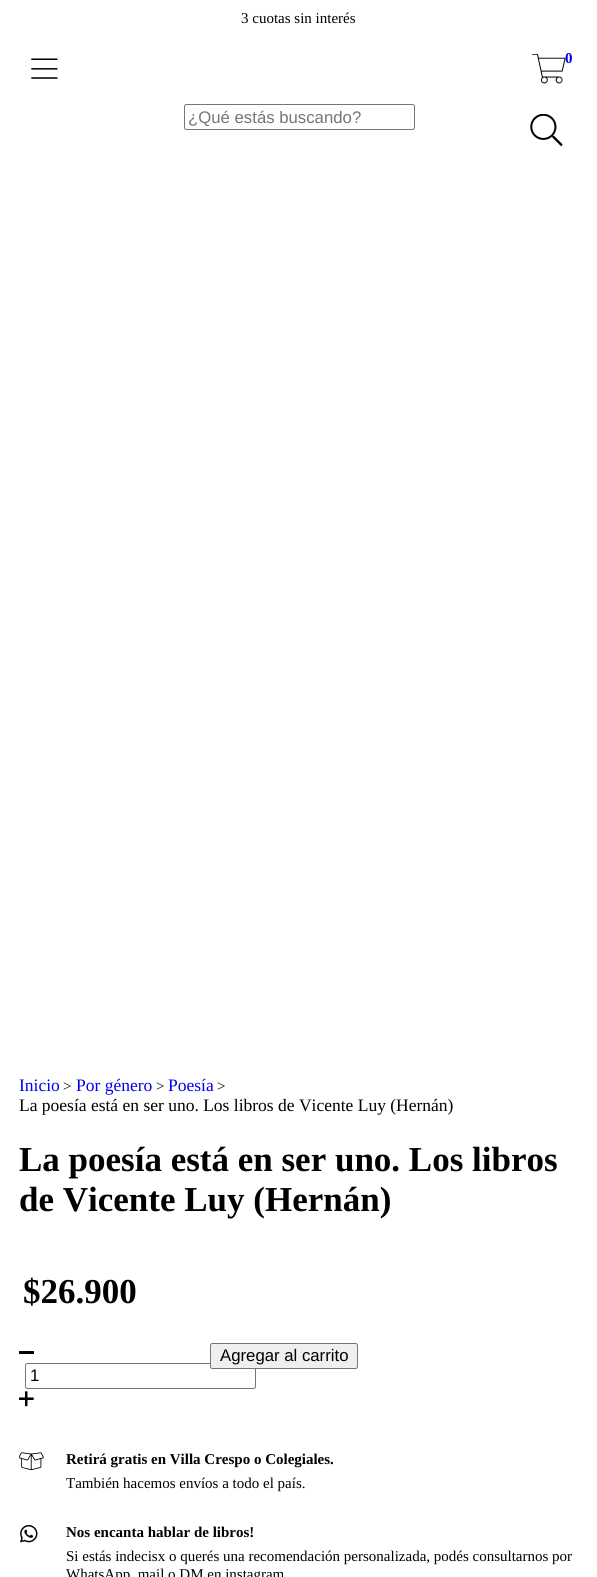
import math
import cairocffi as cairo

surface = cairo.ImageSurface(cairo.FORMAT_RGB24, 597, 1577)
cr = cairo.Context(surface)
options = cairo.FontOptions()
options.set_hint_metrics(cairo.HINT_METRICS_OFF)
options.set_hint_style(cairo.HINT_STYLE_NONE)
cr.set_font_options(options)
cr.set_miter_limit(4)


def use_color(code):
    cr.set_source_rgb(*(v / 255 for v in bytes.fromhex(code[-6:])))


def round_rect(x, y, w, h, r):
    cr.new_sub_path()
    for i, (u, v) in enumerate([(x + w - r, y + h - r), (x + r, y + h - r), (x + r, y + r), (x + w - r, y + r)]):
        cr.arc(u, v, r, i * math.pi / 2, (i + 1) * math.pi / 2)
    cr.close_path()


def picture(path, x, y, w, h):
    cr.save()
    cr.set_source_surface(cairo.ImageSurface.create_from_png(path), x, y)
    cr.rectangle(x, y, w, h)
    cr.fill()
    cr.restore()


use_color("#ffffff")
cr.paint()
cr.select_font_face("Liberation Serif")
cr.set_font_size(15)
use_color("#000000")
cr.move_to(241, 23)
cr.show_text("3 cuotas sin interés")
picture("img1.png", 31, 58, 27, 21)
picture("img2.png", 532, 54, 34, 30)
cr.select_font_face("Liberation Serif", cairo.FONT_SLANT_NORMAL, cairo.FONT_WEIGHT_BOLD)
use_color("#0000ee")
cr.move_to(565, 63)
cr.show_text("0")
round_rect(184.5, 104.5, 230, 25, 2)
use_color("#767676")
cr.set_line_width(1)
cr.stroke()
cr.select_font_face("Liberation Sans")
cr.set_font_size(16.75)
use_color("#757575")
cr.move_to(188, 123)
cr.show_text("¿Qué estás buscando?")
picture("img3.png", 530, 114, 33, 32)
cr.select_font_face("Liberation Serif")
cr.set_font_size(17.5)
use_color("#0000ee")
cr.move_to(19, 1091)
cr.show_text("Inicio")
cr.set_font_size(15)
use_color("#000000")
cr.move_to(63, 1091)
cr.show_text(">")
cr.set_font_size(17.5)
use_color("#0000ee")
cr.move_to(76, 1091)
cr.show_text("Por género")
cr.set_font_size(15)
use_color("#000000")
cr.move_to(156, 1091)
cr.show_text(">")
cr.set_font_size(17.5)
use_color("#0000ee")
cr.move_to(168, 1091)
cr.show_text("Poesía")
cr.set_font_size(15)
use_color("#000000")
cr.move_to(217, 1091)
cr.show_text(">")
cr.set_font_size(17.5)
cr.move_to(19, 1111)
cr.show_text("La poesía está en ser uno. Los libros de Vicente Luy (Hernán)")
cr.select_font_face("Liberation Serif", cairo.FONT_SLANT_NORMAL, cairo.FONT_WEIGHT_BOLD)
cr.set_font_size(35)
cr.move_to(19, 1171)
cr.show_text("La poesía está en ser uno. Los libros")
cr.move_to(19, 1211)
cr.show_text("de Vicente Luy (Hernán)")
cr.move_to(23, 1303)
cr.show_text("$26.900")
round_rect(25.5, 1363.5, 230, 25, 2)
use_color("#767676")
cr.stroke()
use_color("#efefef")
round_rect(210.5, 1343.5, 147, 25, 2)
cr.fill_preserve()
use_color("#767676")
cr.stroke()
cr.select_font_face("Liberation Sans")
cr.set_font_size(16.75)
use_color("#000000")
cr.move_to(220, 1361)
cr.show_text("Agregar al carrito")
cr.rectangle(19, 1351, 15, 3)
cr.fill()
cr.move_to(30, 1381)
cr.show_text("1")
picture("img4.png", 19, 1391, 15, 16)
picture("img5.png", 19, 1452, 25, 19)
cr.select_font_face("Liberation Serif", cairo.FONT_SLANT_NORMAL, cairo.FONT_WEIGHT_BOLD)
cr.set_font_size(15)
cr.move_to(66, 1464)
cr.show_text("Retirá gratis en Villa Crespo o Colegiales.")
cr.select_font_face("Liberation Serif")
cr.move_to(66, 1488)
cr.show_text("También hacemos envíos a todo el país.")
picture("img6.png", 20, 1525, 18, 18)
cr.select_font_face("Liberation Serif", cairo.FONT_SLANT_NORMAL, cairo.FONT_WEIGHT_BOLD)
cr.move_to(66, 1537)
cr.show_text("Nos encanta hablar de libros!")
cr.select_font_face("Liberation Serif")
cr.move_to(66, 1561)
cr.show_text("Si estás indecisx o querés una recomendación personalizada, podés consultarnos por")
cr.move_to(66, 1579)
cr.show_text("WhatsApp, mail o DM en instagram")
surface.write_to_png("result.png")
